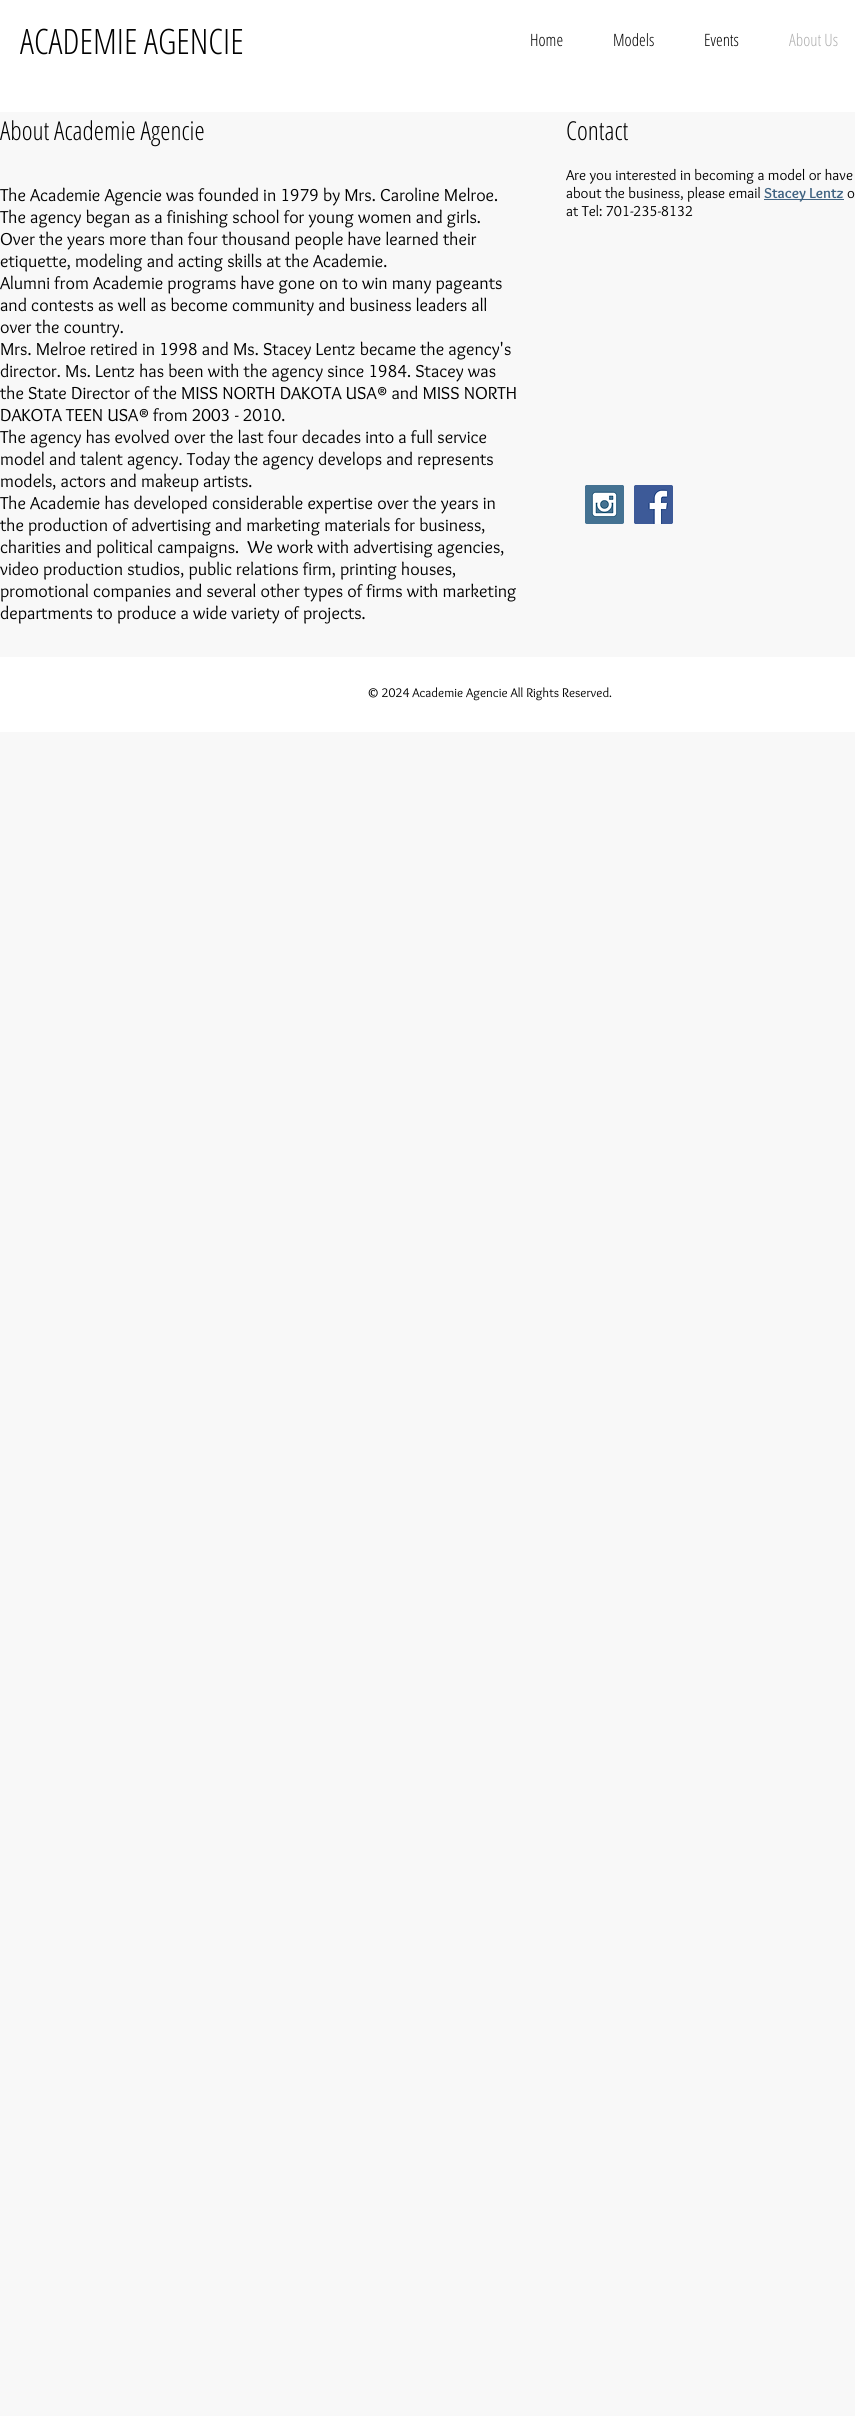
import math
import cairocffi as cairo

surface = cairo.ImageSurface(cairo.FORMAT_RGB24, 855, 2416)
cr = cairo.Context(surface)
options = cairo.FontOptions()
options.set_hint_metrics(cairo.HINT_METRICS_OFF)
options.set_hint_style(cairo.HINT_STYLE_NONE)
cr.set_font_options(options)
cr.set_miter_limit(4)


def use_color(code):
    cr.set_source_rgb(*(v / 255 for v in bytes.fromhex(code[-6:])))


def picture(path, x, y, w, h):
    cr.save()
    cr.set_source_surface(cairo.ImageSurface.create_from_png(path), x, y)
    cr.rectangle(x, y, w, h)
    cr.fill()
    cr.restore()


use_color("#f8f8f8")
cr.paint()
use_color("#ffffff")
cr.rectangle(0, 0, 855, 112)
cr.fill()
cr.select_font_face("Open Sans Condensed Light")
cr.set_font_size(35)
use_color("#000000")
cr.move_to(20, 54)
cr.show_text("ACADEMIE AGENCIE")
cr.set_font_size(17)
cr.move_to(530, 46)
cr.show_text("Home")
cr.move_to(613, 46)
cr.show_text("Models")
cr.move_to(704, 46)
cr.show_text("Events")
use_color("#afafaf")
cr.move_to(789, 46)
cr.show_text("About Us")
cr.set_font_size(26)
use_color("#000000")
cr.move_to(0, 140)
cr.show_text("About Academie Agencie")
cr.select_font_face("Overlock")
cr.set_font_size(18)
cr.move_to(0, 201)
cr.show_text("The Academie Agencie was founded in 1979 by Mrs. Caroline Melroe.")
cr.move_to(0, 223)
cr.show_text("The agency began as a finishing school for young women and girls.")
cr.move_to(0, 245)
cr.show_text("Over the years more than four thousand people have learned their")
cr.move_to(0, 267)
cr.show_text("etiquette, modeling and acting skills at the Academie.")
cr.move_to(0, 289)
cr.show_text("Alumni from Academie programs have gone on to win many pageants")
cr.move_to(0, 311)
cr.show_text("and contests as well as become community and business leaders all")
cr.move_to(0, 333)
cr.show_text("over the country.")
cr.move_to(0, 355)
cr.show_text("Mrs. Melroe retired in 1998 and Ms. Stacey Lentz became the agency's")
cr.move_to(0, 377)
cr.show_text("director. Ms. Lentz has been with the agency since 1984. Stacey was")
cr.move_to(0, 399)
cr.show_text("the State Director of the MISS NORTH DAKOTA USA® and MISS NORTH")
cr.move_to(0, 421)
cr.show_text("DAKOTA TEEN USA® from 2003 - 2010.")
cr.move_to(0, 443)
cr.show_text("The agency has evolved over the last four decades into a full service")
cr.move_to(0, 465)
cr.show_text("model and talent agency. Today the agency develops and represents")
cr.move_to(0, 487)
cr.show_text("models, actors and makeup artists.")
cr.move_to(0, 509)
cr.show_text("The Academie has developed considerable expertise over the years in")
cr.move_to(0, 531)
cr.show_text("the production of advertising and marketing materials for business,")
cr.move_to(0, 553)
cr.show_text("charities and political campaigns.  We work with advertising agencies,")
cr.move_to(0, 575)
cr.show_text("video production studios, public relations firm, printing houses,")
cr.move_to(0, 597)
cr.show_text("promotional companies and several other types of firms with marketing")
cr.move_to(0, 619)
cr.show_text("departments to produce a wide variety of projects.")
cr.select_font_face("Open Sans Condensed Light")
cr.set_font_size(26)
cr.move_to(566, 140)
cr.show_text("Contact")
cr.select_font_face("Overlock")
cr.set_font_size(15)
cr.move_to(566, 180)
cr.show_text("Are you interested in becoming a model or have")
cr.move_to(566, 198)
cr.show_text("about the business, please email")
use_color("#416482")
cr.rectangle(764, 199, 80, 1)
cr.fill()
cr.select_font_face("Overlock", cairo.FONT_SLANT_NORMAL, cairo.FONT_WEIGHT_BOLD)
cr.move_to(764, 198)
cr.show_text("Stacey Lentz")
cr.select_font_face("Overlock")
use_color("#000000")
cr.move_to(847, 198)
cr.show_text("o")
cr.move_to(566, 216)
cr.show_text("at Tel: 701-235-8132")
picture("img1.png", 585, 485, 39, 39)
picture("img2.png", 634, 485, 39, 39)
use_color("#ffffff")
cr.rectangle(0, 657, 855, 75)
cr.fill()
cr.set_font_size(13)
use_color("#000000")
cr.move_to(367, 697)
cr.show_text("© 2024 Academie Agencie All Rights Reserved.")
surface.write_to_png("result.png")
